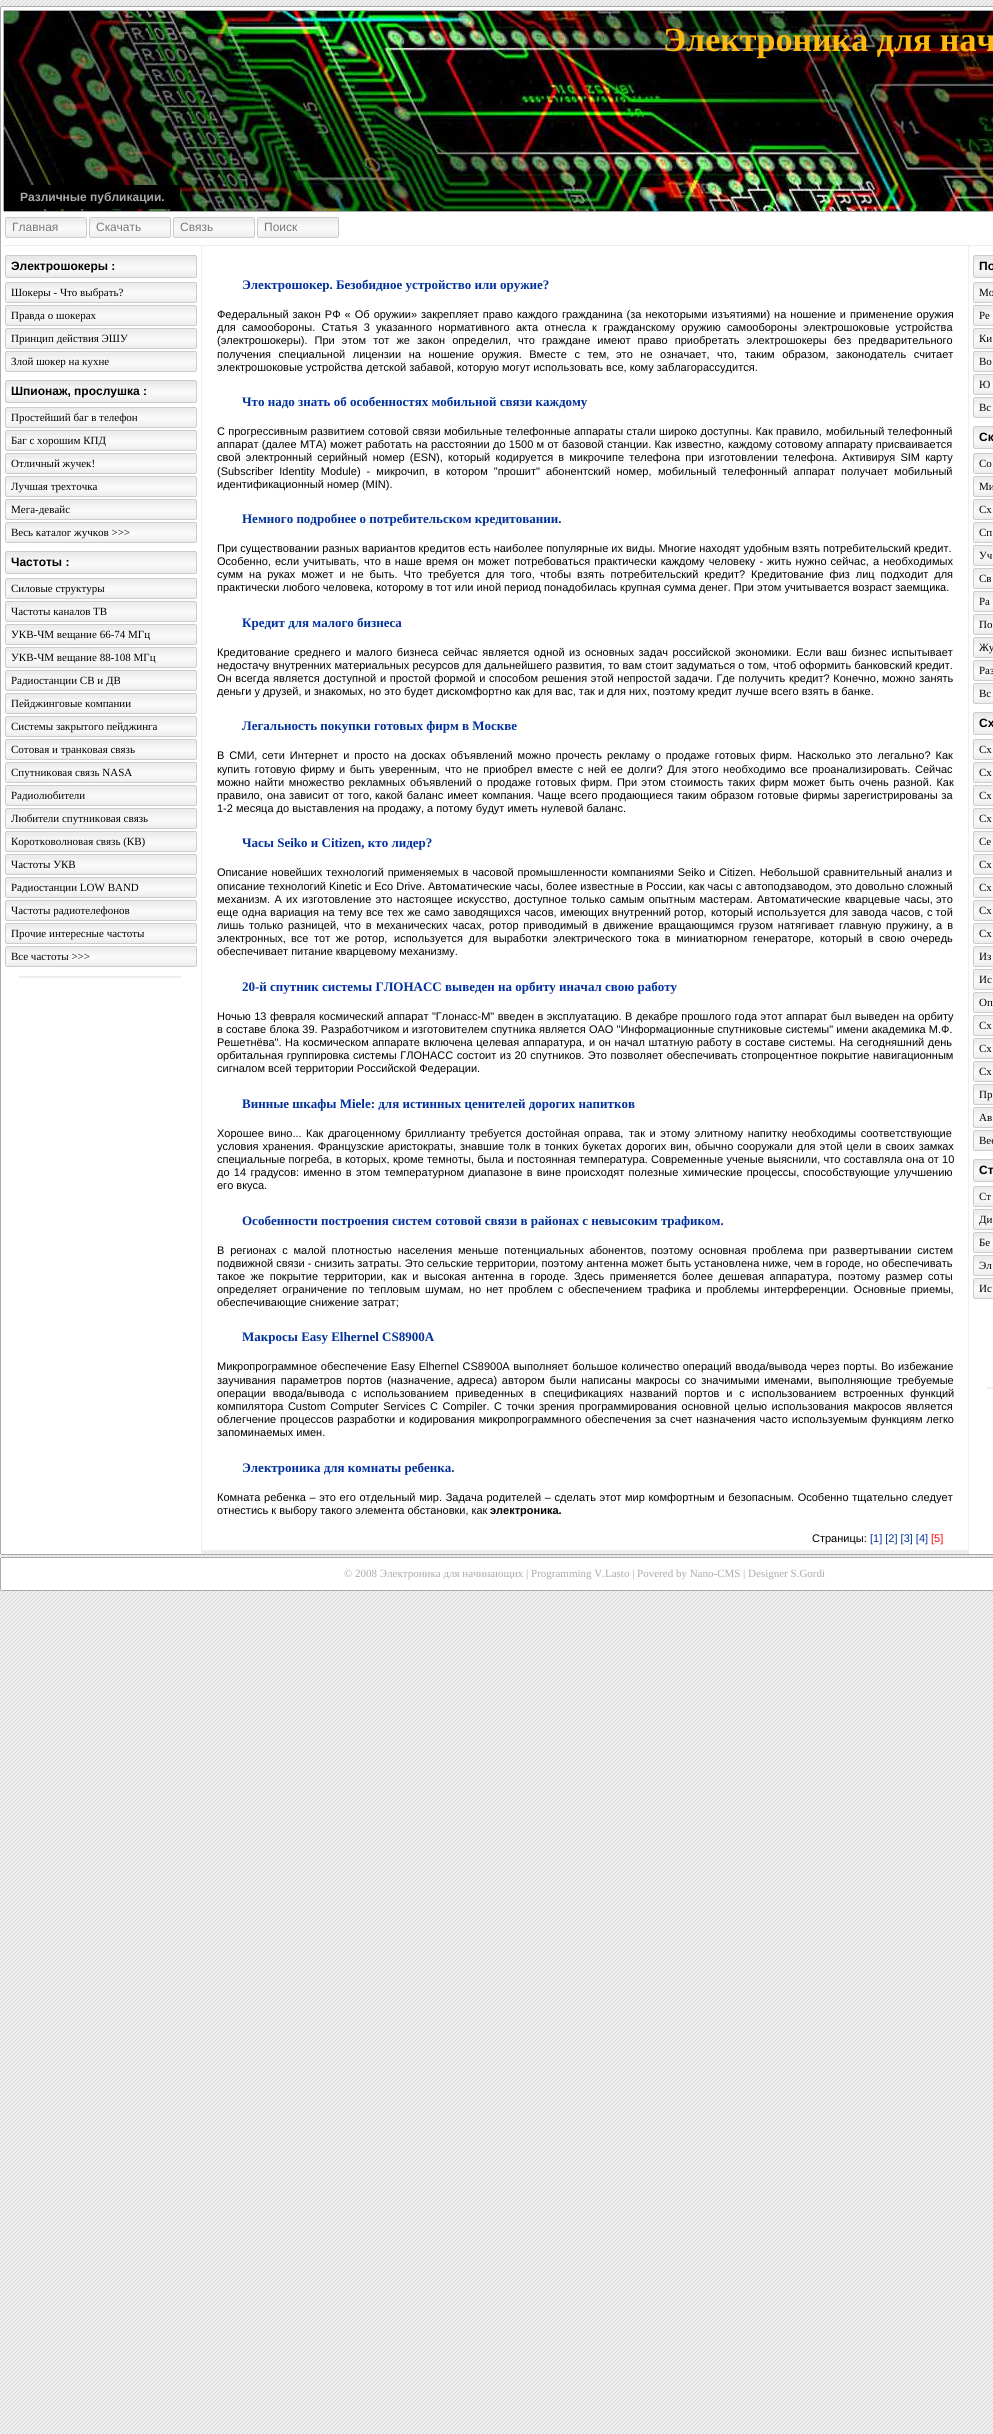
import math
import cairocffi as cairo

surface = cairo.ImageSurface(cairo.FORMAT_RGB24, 993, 2434)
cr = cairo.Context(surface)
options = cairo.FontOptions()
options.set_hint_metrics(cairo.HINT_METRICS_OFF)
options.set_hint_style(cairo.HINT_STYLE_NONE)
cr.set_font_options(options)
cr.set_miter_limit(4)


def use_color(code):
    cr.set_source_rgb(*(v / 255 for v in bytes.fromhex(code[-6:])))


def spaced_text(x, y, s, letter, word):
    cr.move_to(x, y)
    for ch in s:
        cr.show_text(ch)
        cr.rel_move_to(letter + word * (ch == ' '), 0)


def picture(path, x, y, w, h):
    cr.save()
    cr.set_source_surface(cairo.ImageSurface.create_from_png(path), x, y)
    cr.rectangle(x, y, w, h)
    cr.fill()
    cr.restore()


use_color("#ffffff")
cr.paint()
picture("img1.png", 0, 0, 993, 2434)
use_color("#ffffff")
cr.rectangle(1, 7, 992, 1547)
cr.fill()
use_color("#aaaaaa")
cr.rectangle(0, 7, 1, 1547)
cr.fill()
cr.rectangle(1, 6, 992, 1)
cr.fill()
cr.rectangle(1, 1554, 992, 1)
cr.fill()
picture("img2.png", 4, 11, 989, 200)
cr.rectangle(3, 11, 1, 200)
cr.fill()
cr.rectangle(4, 10, 989, 1)
cr.fill()
cr.rectangle(4, 211, 989, 1)
cr.fill()
cr.select_font_face("Liberation Serif", cairo.FONT_SLANT_NORMAL, cairo.FONT_WEIGHT_BOLD)
cr.set_font_size(34)
use_color("#ffb90f")
cr.move_to(663, 51)
cr.show_text("Электроника для нач")
use_color("#000000")
cr.rectangle(28, 185, 152, 24)
cr.fill()
cr.select_font_face("Liberation Sans", cairo.FONT_SLANT_NORMAL, cairo.FONT_WEIGHT_BOLD)
cr.set_font_size(12)
use_color("#aaaaaa")
cr.move_to(20, 201)
cr.show_text("Различные публикации.")
use_color("#eeeeee")
cr.rectangle(3, 245, 990, 1)
cr.fill()
use_color("#cccccc")
cr.rectangle(86, 218, 1, 19)
cr.fill()
cr.rectangle(5, 218, 1, 19)
cr.fill()
picture("img3.png", 6, 218, 80, 2)
cr.rectangle(6, 217, 80, 1)
cr.fill()
picture("img4.png", 6, 220, 80, 17)
cr.rectangle(6, 237, 80, 1)
cr.fill()
cr.select_font_face("Liberation Sans")
use_color("#777777")
cr.move_to(12, 231)
cr.show_text("Главная")
use_color("#cccccc")
cr.rectangle(170, 218, 1, 19)
cr.fill()
cr.rectangle(89, 218, 1, 19)
cr.fill()
picture("img3.png", 90, 218, 80, 2)
cr.rectangle(90, 217, 80, 1)
cr.fill()
picture("img4.png", 90, 220, 80, 17)
cr.rectangle(90, 237, 80, 1)
cr.fill()
use_color("#777777")
cr.move_to(96, 231)
cr.show_text("Скачать")
use_color("#cccccc")
cr.rectangle(254, 218, 1, 19)
cr.fill()
cr.rectangle(173, 218, 1, 19)
cr.fill()
picture("img3.png", 174, 218, 80, 2)
cr.rectangle(174, 217, 80, 1)
cr.fill()
picture("img4.png", 174, 220, 80, 17)
cr.rectangle(174, 237, 80, 1)
cr.fill()
use_color("#777777")
cr.move_to(180, 231)
cr.show_text("Связь")
use_color("#cccccc")
cr.rectangle(338, 218, 1, 19)
cr.fill()
cr.rectangle(257, 218, 1, 19)
cr.fill()
picture("img3.png", 258, 218, 80, 2)
cr.rectangle(258, 217, 80, 1)
cr.fill()
picture("img4.png", 258, 220, 80, 17)
cr.rectangle(258, 237, 80, 1)
cr.fill()
use_color("#777777")
cr.move_to(264, 231)
cr.show_text("Поиск")
use_color("#efefef")
cr.rectangle(968, 246, 1, 1308)
cr.fill()
cr.rectangle(201, 246, 1, 1308)
cr.fill()
use_color("#cccccc")
cr.rectangle(196, 256, 1, 21)
cr.fill()
cr.rectangle(5, 256, 1, 21)
cr.fill()
picture("img5.png", 6, 256, 190, 2)
cr.rectangle(6, 255, 190, 1)
cr.fill()
picture("img6.png", 6, 258, 190, 19)
cr.rectangle(6, 277, 190, 1)
cr.fill()
cr.select_font_face("Liberation Sans", cairo.FONT_SLANT_NORMAL, cairo.FONT_WEIGHT_BOLD)
use_color("#000000")
cr.move_to(11, 270)
cr.show_text("Электрошокеры :")
use_color("#cccccc")
cr.rectangle(196, 283, 1, 19)
cr.fill()
cr.rectangle(5, 283, 1, 19)
cr.fill()
picture("img7.png", 6, 283, 190, 2)
cr.rectangle(6, 282, 190, 1)
cr.fill()
picture("img8.png", 6, 285, 190, 17)
cr.rectangle(6, 302, 190, 1)
cr.fill()
cr.select_font_face("Liberation Serif")
cr.set_font_size(11)
use_color("#000000")
cr.move_to(11, 296)
cr.show_text("Шокеры - Что выбрать?")
use_color("#cccccc")
cr.rectangle(196, 306, 1, 19)
cr.fill()
cr.rectangle(5, 306, 1, 19)
cr.fill()
picture("img7.png", 6, 306, 190, 2)
cr.rectangle(6, 305, 190, 1)
cr.fill()
picture("img8.png", 6, 308, 190, 17)
cr.rectangle(6, 325, 190, 1)
cr.fill()
use_color("#000000")
cr.move_to(11, 319)
cr.show_text("Правда о шокерах")
use_color("#cccccc")
cr.rectangle(196, 329, 1, 19)
cr.fill()
cr.rectangle(5, 329, 1, 19)
cr.fill()
picture("img7.png", 6, 329, 190, 2)
cr.rectangle(6, 328, 190, 1)
cr.fill()
picture("img8.png", 6, 331, 190, 17)
cr.rectangle(6, 348, 190, 1)
cr.fill()
use_color("#000000")
cr.move_to(11, 342)
cr.show_text("Принцип действия ЭШУ")
use_color("#cccccc")
cr.rectangle(196, 352, 1, 19)
cr.fill()
cr.rectangle(5, 352, 1, 19)
cr.fill()
picture("img7.png", 6, 352, 190, 2)
cr.rectangle(6, 351, 190, 1)
cr.fill()
picture("img8.png", 6, 354, 190, 17)
cr.rectangle(6, 371, 190, 1)
cr.fill()
use_color("#000000")
cr.move_to(11, 365)
cr.show_text("Злой шокер на кухне")
use_color("#cccccc")
cr.rectangle(196, 381, 1, 21)
cr.fill()
cr.rectangle(5, 381, 1, 21)
cr.fill()
picture("img5.png", 6, 381, 190, 2)
cr.rectangle(6, 380, 190, 1)
cr.fill()
picture("img6.png", 6, 383, 190, 19)
cr.rectangle(6, 402, 190, 1)
cr.fill()
cr.select_font_face("Liberation Sans", cairo.FONT_SLANT_NORMAL, cairo.FONT_WEIGHT_BOLD)
cr.set_font_size(12)
use_color("#000000")
cr.move_to(11, 395)
cr.show_text("Шпионаж, прослушка :")
use_color("#cccccc")
cr.rectangle(196, 408, 1, 19)
cr.fill()
cr.rectangle(5, 408, 1, 19)
cr.fill()
picture("img7.png", 6, 408, 190, 2)
cr.rectangle(6, 407, 190, 1)
cr.fill()
picture("img8.png", 6, 410, 190, 17)
cr.rectangle(6, 427, 190, 1)
cr.fill()
cr.select_font_face("Liberation Serif")
cr.set_font_size(11)
use_color("#000000")
cr.move_to(11, 421)
cr.show_text("Простейший баг в телефон")
use_color("#cccccc")
cr.rectangle(196, 431, 1, 19)
cr.fill()
cr.rectangle(5, 431, 1, 19)
cr.fill()
picture("img7.png", 6, 431, 190, 2)
cr.rectangle(6, 430, 190, 1)
cr.fill()
picture("img8.png", 6, 433, 190, 17)
cr.rectangle(6, 450, 190, 1)
cr.fill()
use_color("#000000")
cr.move_to(11, 444)
cr.show_text("Баг с хорошим КПД")
use_color("#cccccc")
cr.rectangle(196, 454, 1, 19)
cr.fill()
cr.rectangle(5, 454, 1, 19)
cr.fill()
picture("img7.png", 6, 454, 190, 2)
cr.rectangle(6, 453, 190, 1)
cr.fill()
picture("img8.png", 6, 456, 190, 17)
cr.rectangle(6, 473, 190, 1)
cr.fill()
use_color("#000000")
cr.move_to(11, 467)
cr.show_text("Отличный жучек!")
use_color("#cccccc")
cr.rectangle(196, 477, 1, 19)
cr.fill()
cr.rectangle(5, 477, 1, 19)
cr.fill()
picture("img7.png", 6, 477, 190, 2)
cr.rectangle(6, 476, 190, 1)
cr.fill()
picture("img8.png", 6, 479, 190, 17)
cr.rectangle(6, 496, 190, 1)
cr.fill()
use_color("#000000")
cr.move_to(11, 490)
cr.show_text("Лучшая трехточка")
use_color("#cccccc")
cr.rectangle(196, 500, 1, 19)
cr.fill()
cr.rectangle(5, 500, 1, 19)
cr.fill()
picture("img7.png", 6, 500, 190, 2)
cr.rectangle(6, 499, 190, 1)
cr.fill()
picture("img8.png", 6, 502, 190, 17)
cr.rectangle(6, 519, 190, 1)
cr.fill()
use_color("#000000")
cr.move_to(11, 513)
cr.show_text("Мега-девайс")
use_color("#cccccc")
cr.rectangle(196, 523, 1, 19)
cr.fill()
cr.rectangle(5, 523, 1, 19)
cr.fill()
picture("img7.png", 6, 523, 190, 2)
cr.rectangle(6, 522, 190, 1)
cr.fill()
picture("img8.png", 6, 525, 190, 17)
cr.rectangle(6, 542, 190, 1)
cr.fill()
use_color("#000000")
cr.move_to(11, 536)
cr.show_text("Весь каталог жучков >>>")
use_color("#cccccc")
cr.rectangle(196, 552, 1, 21)
cr.fill()
cr.rectangle(5, 552, 1, 21)
cr.fill()
picture("img5.png", 6, 552, 190, 2)
cr.rectangle(6, 551, 190, 1)
cr.fill()
picture("img6.png", 6, 554, 190, 19)
cr.rectangle(6, 573, 190, 1)
cr.fill()
cr.select_font_face("Liberation Sans", cairo.FONT_SLANT_NORMAL, cairo.FONT_WEIGHT_BOLD)
cr.set_font_size(12)
use_color("#000000")
cr.move_to(11, 566)
cr.show_text("Частоты :")
use_color("#cccccc")
cr.rectangle(196, 579, 1, 19)
cr.fill()
cr.rectangle(5, 579, 1, 19)
cr.fill()
picture("img7.png", 6, 579, 190, 2)
cr.rectangle(6, 578, 190, 1)
cr.fill()
picture("img8.png", 6, 581, 190, 17)
cr.rectangle(6, 598, 190, 1)
cr.fill()
cr.select_font_face("Liberation Serif")
cr.set_font_size(11)
use_color("#000000")
cr.move_to(11, 592)
cr.show_text("Силовые структуры")
use_color("#cccccc")
cr.rectangle(196, 602, 1, 19)
cr.fill()
cr.rectangle(5, 602, 1, 19)
cr.fill()
picture("img7.png", 6, 602, 190, 2)
cr.rectangle(6, 601, 190, 1)
cr.fill()
picture("img8.png", 6, 604, 190, 17)
cr.rectangle(6, 621, 190, 1)
cr.fill()
use_color("#000000")
cr.move_to(11, 615)
cr.show_text("Частоты каналов ТВ")
use_color("#cccccc")
cr.rectangle(196, 625, 1, 19)
cr.fill()
cr.rectangle(5, 625, 1, 19)
cr.fill()
picture("img7.png", 6, 625, 190, 2)
cr.rectangle(6, 624, 190, 1)
cr.fill()
picture("img8.png", 6, 627, 190, 17)
cr.rectangle(6, 644, 190, 1)
cr.fill()
use_color("#000000")
cr.move_to(11, 638)
cr.show_text("УКВ-ЧМ вещание 66-74 МГц")
use_color("#cccccc")
cr.rectangle(196, 648, 1, 19)
cr.fill()
cr.rectangle(5, 648, 1, 19)
cr.fill()
picture("img7.png", 6, 648, 190, 2)
cr.rectangle(6, 647, 190, 1)
cr.fill()
picture("img8.png", 6, 650, 190, 17)
cr.rectangle(6, 667, 190, 1)
cr.fill()
use_color("#000000")
cr.move_to(11, 661)
cr.show_text("УКВ-ЧМ вещание 88-108 МГц")
use_color("#cccccc")
cr.rectangle(196, 671, 1, 19)
cr.fill()
cr.rectangle(5, 671, 1, 19)
cr.fill()
picture("img7.png", 6, 671, 190, 2)
cr.rectangle(6, 670, 190, 1)
cr.fill()
picture("img8.png", 6, 673, 190, 17)
cr.rectangle(6, 690, 190, 1)
cr.fill()
use_color("#000000")
cr.move_to(11, 684)
cr.show_text("Радиостанции СВ и ДВ")
use_color("#cccccc")
cr.rectangle(196, 694, 1, 19)
cr.fill()
cr.rectangle(5, 694, 1, 19)
cr.fill()
picture("img7.png", 6, 694, 190, 2)
cr.rectangle(6, 693, 190, 1)
cr.fill()
picture("img8.png", 6, 696, 190, 17)
cr.rectangle(6, 713, 190, 1)
cr.fill()
use_color("#000000")
cr.move_to(11, 707)
cr.show_text("Пейджинговые компании")
use_color("#cccccc")
cr.rectangle(196, 717, 1, 19)
cr.fill()
cr.rectangle(5, 717, 1, 19)
cr.fill()
picture("img7.png", 6, 717, 190, 2)
cr.rectangle(6, 716, 190, 1)
cr.fill()
picture("img8.png", 6, 719, 190, 17)
cr.rectangle(6, 736, 190, 1)
cr.fill()
use_color("#000000")
cr.move_to(11, 730)
cr.show_text("Системы закpытого пейджинга")
use_color("#cccccc")
cr.rectangle(196, 740, 1, 19)
cr.fill()
cr.rectangle(5, 740, 1, 19)
cr.fill()
picture("img7.png", 6, 740, 190, 2)
cr.rectangle(6, 739, 190, 1)
cr.fill()
picture("img8.png", 6, 742, 190, 17)
cr.rectangle(6, 759, 190, 1)
cr.fill()
use_color("#000000")
cr.move_to(11, 753)
cr.show_text("Сотовая и транковая связь")
use_color("#cccccc")
cr.rectangle(196, 763, 1, 19)
cr.fill()
cr.rectangle(5, 763, 1, 19)
cr.fill()
picture("img7.png", 6, 763, 190, 2)
cr.rectangle(6, 762, 190, 1)
cr.fill()
picture("img8.png", 6, 765, 190, 17)
cr.rectangle(6, 782, 190, 1)
cr.fill()
use_color("#000000")
cr.move_to(11, 776)
cr.show_text("Спутниковая связь NASA")
use_color("#cccccc")
cr.rectangle(196, 786, 1, 19)
cr.fill()
cr.rectangle(5, 786, 1, 19)
cr.fill()
picture("img7.png", 6, 786, 190, 2)
cr.rectangle(6, 785, 190, 1)
cr.fill()
picture("img8.png", 6, 788, 190, 17)
cr.rectangle(6, 805, 190, 1)
cr.fill()
use_color("#000000")
cr.move_to(11, 799)
cr.show_text("Радиолюбители")
use_color("#cccccc")
cr.rectangle(196, 809, 1, 19)
cr.fill()
cr.rectangle(5, 809, 1, 19)
cr.fill()
picture("img7.png", 6, 809, 190, 2)
cr.rectangle(6, 808, 190, 1)
cr.fill()
picture("img8.png", 6, 811, 190, 17)
cr.rectangle(6, 828, 190, 1)
cr.fill()
use_color("#000000")
cr.move_to(11, 822)
cr.show_text("Любители спутниковая связь")
use_color("#cccccc")
cr.rectangle(196, 832, 1, 19)
cr.fill()
cr.rectangle(5, 832, 1, 19)
cr.fill()
picture("img7.png", 6, 832, 190, 2)
cr.rectangle(6, 831, 190, 1)
cr.fill()
picture("img8.png", 6, 834, 190, 17)
cr.rectangle(6, 851, 190, 1)
cr.fill()
use_color("#000000")
cr.move_to(11, 845)
cr.show_text("Коротковолновая связь (КВ)")
use_color("#cccccc")
cr.rectangle(196, 855, 1, 19)
cr.fill()
cr.rectangle(5, 855, 1, 19)
cr.fill()
picture("img7.png", 6, 855, 190, 2)
cr.rectangle(6, 854, 190, 1)
cr.fill()
picture("img8.png", 6, 857, 190, 17)
cr.rectangle(6, 874, 190, 1)
cr.fill()
use_color("#000000")
cr.move_to(11, 868)
cr.show_text("Частоты УКВ")
use_color("#cccccc")
cr.rectangle(196, 878, 1, 19)
cr.fill()
cr.rectangle(5, 878, 1, 19)
cr.fill()
picture("img7.png", 6, 878, 190, 2)
cr.rectangle(6, 877, 190, 1)
cr.fill()
picture("img8.png", 6, 880, 190, 17)
cr.rectangle(6, 897, 190, 1)
cr.fill()
use_color("#000000")
cr.move_to(11, 891)
cr.show_text("Радиостанции LOW BAND")
use_color("#cccccc")
cr.rectangle(196, 901, 1, 19)
cr.fill()
cr.rectangle(5, 901, 1, 19)
cr.fill()
picture("img7.png", 6, 901, 190, 2)
cr.rectangle(6, 900, 190, 1)
cr.fill()
picture("img8.png", 6, 903, 190, 17)
cr.rectangle(6, 920, 190, 1)
cr.fill()
use_color("#000000")
cr.move_to(11, 914)
cr.show_text("Частоты радиотелефонов")
use_color("#cccccc")
cr.rectangle(196, 924, 1, 19)
cr.fill()
cr.rectangle(5, 924, 1, 19)
cr.fill()
picture("img7.png", 6, 924, 190, 2)
cr.rectangle(6, 923, 190, 1)
cr.fill()
picture("img8.png", 6, 926, 190, 17)
cr.rectangle(6, 943, 190, 1)
cr.fill()
use_color("#000000")
cr.move_to(11, 937)
cr.show_text("Прочие интересные частоты")
use_color("#cccccc")
cr.rectangle(196, 947, 1, 19)
cr.fill()
cr.rectangle(5, 947, 1, 19)
cr.fill()
picture("img7.png", 6, 947, 190, 2)
cr.rectangle(6, 946, 190, 1)
cr.fill()
picture("img8.png", 6, 949, 190, 17)
cr.rectangle(6, 966, 190, 1)
cr.fill()
use_color("#000000")
cr.move_to(11, 960)
cr.show_text("Все частоты >>>")
use_color("#eeeeee")
cr.rectangle(19, 976, 162, 2)
cr.fill()
cr.select_font_face("Liberation Serif", cairo.FONT_SLANT_NORMAL, cairo.FONT_WEIGHT_BOLD)
cr.set_font_size(13)
use_color("#00309c")
cr.move_to(242, 289)
cr.show_text("Электрошокер. Безобидное устройство или оружие?")
cr.select_font_face("Liberation Sans")
cr.set_font_size(11)
use_color("#000000")
spaced_text(217, 318, "Федеральный закон РФ « Об оружии»", 0, 1)
spaced_text(421, 318, "закрепляет право каждого гражданина (за некоторыми изъятиями) на ношение и применение оружия", 0, 1)
spaced_text(217, 331, "для самообороны. Статья 3 указанного нормативного акта отнесла к гражданскому оружию самообороны электрошоковые устройства", 0, 3.25)
spaced_text(217, 344, "(электрошокеры). При этом тот же закон определил,", 0, 4)
spaced_text(518, 344, "что граждане имеют право приобретать электрошокеры без предварительного", 0, 4)
spaced_text(217, 358, "получения специальной лицензии на ношение оружия. Вместе с тем,", 0, 4.5)
spaced_text(616, 358, "это не означает,", 0, 4.5)
cr.move_to(717, 358)
cr.show_text("что,")
spaced_text(745, 358, "таким образом,", 0, 4.5)
spaced_text(836, 358, "законодатель считает", 0, 4.5)
cr.move_to(217, 371)
cr.show_text("электрошоковые устройства детской забавой, которую могут использовать все, кому заблагорассудится.")
cr.select_font_face("Liberation Serif", cairo.FONT_SLANT_NORMAL, cairo.FONT_WEIGHT_BOLD)
cr.set_font_size(13)
use_color("#00309c")
cr.move_to(242, 406)
cr.show_text("Что надо знать об особенностях мобильной связи каждому")
cr.select_font_face("Liberation Sans")
cr.set_font_size(11)
use_color("#000000")
spaced_text(217, 435, "С прогрессивным развитием сотовой связи мобильные телефонные аппараты стали широко доступны. Как правило,", 0, 0.25)
cr.move_to(826, 435)
cr.show_text("мобильный телефонный")
spaced_text(217, 448, "аппарат (далее МТА) может работать на расстоянии до 1500 м от базовой станции. Как известно,", 0, 0.25)
cr.move_to(728, 448)
cr.show_text("каждому сотовому аппарату присваивается")
spaced_text(217, 461, "свой электронный серийный номер (ESN),", 0, 2.1)
spaced_text(448, 461, "который кодируется в микрочипе телефона при изготовлении телефона. Активируя SIM карту", 0, 2.1)
spaced_text(217, 475, "(Subscriber Identity Module) - микрочип,", 0, 3)
spaced_text(434, 475, "в котором \"прошит\" абонентский номер,", 0, 3)
spaced_text(658, 475, "мобильный телефонный аппарат получает мобильный", 0, 3)
cr.move_to(217, 488)
cr.show_text("идентификационный номер (MIN).")
cr.select_font_face("Liberation Serif", cairo.FONT_SLANT_NORMAL, cairo.FONT_WEIGHT_BOLD)
cr.set_font_size(13)
use_color("#00309c")
cr.move_to(242, 523)
cr.show_text("Немного подробнее о потребительском кредитовании.")
cr.select_font_face("Liberation Sans")
cr.set_font_size(11)
use_color("#000000")
cr.move_to(217, 552)
cr.show_text("При существовании разных вариантов кредитов есть наиболее популярные их виды. Многие находят удобным взять потребительский кредит.")
cr.move_to(217, 565)
cr.show_text("Особенно,")
spaced_text(275, 565, "если учитывать,", 0, 1)
spaced_text(364, 565, "что в наше время он может потребоваться практически каждому человеку - жить нужно сейчас,", 0, 1)
spaced_text(873, 565, "а необходимых", 0, 1)
spaced_text(217, 578, "сумм на руках может и не быть. Что требуется для того,", 0, 2.9)
spaced_text(540, 578, "чтобы взять потребительский кредит? Кредитование физ лиц подходит для", 0, 2.9)
cr.move_to(217, 591)
cr.show_text("практически любого человека, которому в тот или иной период понадобилась крупная сумма денег. При этом учитывается возраст заемщика.")
cr.select_font_face("Liberation Serif", cairo.FONT_SLANT_NORMAL, cairo.FONT_WEIGHT_BOLD)
cr.set_font_size(13)
use_color("#00309c")
cr.move_to(242, 627)
cr.show_text("Кредит для малого бизнеса")
cr.select_font_face("Liberation Sans")
cr.set_font_size(11)
use_color("#000000")
spaced_text(217, 656, "Кредитование среднего и малого бизнеса сейчас является одной из основных задач российской экономики. Если ваш бизнес испытывает", 0, 1.5)
spaced_text(217, 669, "недостачу внутренних материальных ресурсов для дальнейшего развития, то вам стоит задуматься о том,", 0, 0.1)
cr.move_to(773, 669)
cr.show_text("чтоб оформить банковский кредит.")
spaced_text(217, 682, "Он всегда является доступной и простой формой и способом решения этой непростой задачи. Где получить кредит? Конечно,", 0, 0.6)
spaced_text(882, 682, "можно занять", 0, 1)
cr.move_to(217, 695)
cr.show_text("деньги у друзей, и знакомых, но это будет дискомфортно как для вас, так и для них, поэтому кредит лучше всего взять в банке.")
cr.select_font_face("Liberation Serif", cairo.FONT_SLANT_NORMAL, cairo.FONT_WEIGHT_BOLD)
cr.set_font_size(13)
use_color("#00309c")
cr.move_to(242, 730)
cr.show_text("Легальность покупки готовых фирм в Москве")
cr.select_font_face("Liberation Sans")
cr.set_font_size(11)
use_color("#000000")
spaced_text(217, 759, "В СМИ,", 0, 1.9)
spaced_text(262, 759, "сети Интернет и просто на досках объявлений можно прочесть рекламу о продаже готовых фирм. Насколько это легально? Как", 0, 1.9)
spaced_text(217, 773, "купить готовую фирму и быть уверенным,", 0, 1.5)
spaced_text(445, 773, "что не приобрел вместе с ней ее долги? Для этого необходимо все проанализировать. Сейчас", 0, 1.5)
spaced_text(217, 786, "можно найти множество рекламных объявлений о продаже готовых фирм. При этом стоимость таких фирм может быть очень разной. Как", 0, 1.4)
cr.move_to(217, 799)
cr.show_text("правило,")
spaced_text(267, 799, "она зависит от того,", 0, 0.75)
spaced_text(375, 799, "какой баланс имеет компания. Чаще всего продающиеся таким образом готовые фирмы зарегистрированы за", 0, 0.75)
cr.move_to(217, 812)
cr.show_text("1-2 месяца до выставления на продажу, а потому будут иметь нулевой баланс.")
cr.select_font_face("Liberation Serif", cairo.FONT_SLANT_NORMAL, cairo.FONT_WEIGHT_BOLD)
cr.set_font_size(13)
use_color("#00309c")
cr.move_to(242, 847)
cr.show_text("Часы Seiko и Citizen, кто лидер?")
cr.select_font_face("Liberation Sans")
cr.set_font_size(11)
use_color("#000000")
spaced_text(217, 876, "Описание новейших технологий применяемых в часовой промышленности компаниями Seiko и Citizen. Небольшой сравнительный анализ и", 0, 0.8)
cr.move_to(217, 890)
cr.show_text("описание технологий Kinetic и Eco Drive. Автоматические часы, более известные в России, как часы с автоподзаводом, это довольно сложный")
spaced_text(217, 903, "механизм. А их изготовление это настоящее искусство,", 0, 1.25)
spaced_text(514, 903, "доступное только самым опытным мастерам. Автоматические кварцевые часы,", 0, 1.25)
cr.move_to(936, 903)
cr.show_text("это")
spaced_text(217, 916, "еще одна вариация на тему все тех же само заводящихся часов,", 0, 0.5)
cr.move_to(560, 916)
cr.show_text("имеющих внутренний ротор,")
spaced_text(711, 916, "который используется для завода часов,", 0, 0.5)
cr.move_to(927, 916)
cr.show_text("с той")
spaced_text(217, 929, "лишь только разницей,", 0, 1.75)
spaced_text(344, 929, "что в механических часах,", 0, 1.75)
spaced_text(489, 929, "ротор приводимый в движение вращающимся грузом натягивает главную пружину,", 0, 1.75)
spaced_text(936, 929, "а в", 0, 2)
cr.move_to(217, 942)
cr.show_text("электронных,")
spaced_text(291, 942, "все тот же ротор,", 0, 2.5)
spaced_text(394, 942, "используется для выработки электрического тока в миниатюрном генераторе,", 0, 2.5)
spaced_text(820, 942, "который в свою очередь", 0, 2.5)
cr.move_to(217, 955)
cr.show_text("обеспечивает питание кварцевому механизму.")
cr.select_font_face("Liberation Serif", cairo.FONT_SLANT_NORMAL, cairo.FONT_WEIGHT_BOLD)
cr.set_font_size(13)
use_color("#00309c")
cr.move_to(242, 991)
cr.show_text("20-й спутник системы ГЛОНАСС выведен на орбиту иначал свою работу")
cr.select_font_face("Liberation Sans")
cr.set_font_size(11)
use_color("#000000")
spaced_text(217, 1020, "Ночью 13 февраля космический аппарат \"Глонасс-М\" введен в эксплуатацию. В декабре прошлого года этот аппарат был выведен на орбиту", 0, 0.4)
spaced_text(217, 1033, "в составе блока 39. Разработчиком и изготовителем спутника является ОАО \"Информационные спутниковые системы\" имени академика М.Ф.", 0, 0.1)
spaced_text(217, 1046, "Решетнёва\". На космическом аппарате включена целевая аппаратура,", 0, 0.5)
spaced_text(589, 1046, "и он начал штатную работу в составе системы. На сегодняшний день", 0, 0.5)
spaced_text(217, 1059, "орбитальная группировка системы ГЛОНАСС состоит из 20 спутников. Это позволяет обеспечивать стопроцентное покрытие навигационным", 0, 0.5)
cr.move_to(217, 1072)
cr.show_text("сигналом всей территории Российской Федерации.")
cr.select_font_face("Liberation Serif", cairo.FONT_SLANT_NORMAL, cairo.FONT_WEIGHT_BOLD)
cr.set_font_size(13)
use_color("#00309c")
cr.move_to(242, 1108)
cr.show_text("Винные шкафы Miele: для истинных ценителей дорогих напитков")
cr.select_font_face("Liberation Sans")
cr.set_font_size(11)
use_color("#000000")
spaced_text(217, 1137, "Хорошее вино...", 0, 1.5)
spaced_text(306, 1137, "Как драгоценному бриллианту требуется достойная оправа,", 0, 1.5)
spaced_text(629, 1137, "так и этому элитному напитку необходимы соответствующие", 0, 1.5)
spaced_text(217, 1150, "условия хранения. Французские аристократы,", 0, 1)
spaced_text(460, 1150, "знавшие толк в тонких букетах дорогих вин,", 0, 1)
spaced_text(695, 1150, "обычно сооружали для этой цели в своих замках", 0, 1)
cr.move_to(217, 1163)
cr.show_text("специальные погреба,")
cr.move_to(336, 1163)
cr.show_text("в которых,")
spaced_text(393, 1163, "кроме темноты, была и постоянная температура. Современные ученые выяснили, что составляла она от 10", 0, 0.25)
spaced_text(217, 1176, "до 14 градусов: именно в этом температурном диапазоне в вине происходят полезные химические процессы,", 0, 1.25)
spaced_text(803, 1176, "способствующие улучшению", 0, 1)
cr.move_to(217, 1189)
cr.show_text("его вкуса.")
cr.select_font_face("Liberation Serif", cairo.FONT_SLANT_NORMAL, cairo.FONT_WEIGHT_BOLD)
cr.set_font_size(13)
use_color("#00309c")
cr.move_to(242, 1225)
cr.show_text("Особенности построения систем сотовой связи в районах с невысоким трафиком.")
cr.select_font_face("Liberation Sans")
cr.set_font_size(11)
use_color("#000000")
spaced_text(217, 1254, "В регионах с малой плотностью населения меньше потенциальных абонентов,", 0, 2.75)
spaced_text(651, 1254, "поэтому основная проблема при развертывании систем", 0, 2.75)
cr.move_to(217, 1267)
cr.show_text("подвижной связи - снизить затраты. Это сельские территории, поэтому антенна может быть установлена ниже, чем в городе, но обеспечивать")
spaced_text(217, 1280, "такое же покрытие территории,", 0, 2.5)
spaced_text(391, 1280, "как и высокая антенна в городе. Здесь применяется более дешевая аппаратура,", 0, 2.5)
spaced_text(838, 1280, "поэтому размер соты", 0, 2.5)
spaced_text(217, 1293, "определяет ограничение по тепловым шумам,", 0, 1.9)
spaced_text(469, 1293, "но нет проблем с обеспечением трафика и проблемы интерференции. Основные приемы,", 0, 1.9)
cr.move_to(217, 1306)
cr.show_text("обеспечивающие снижение затрат;")
cr.select_font_face("Liberation Serif", cairo.FONT_SLANT_NORMAL, cairo.FONT_WEIGHT_BOLD)
cr.set_font_size(13)
use_color("#00309c")
cr.move_to(242, 1341)
cr.show_text("Макросы Easy Elhernel CS8900A")
cr.select_font_face("Liberation Sans")
cr.set_font_size(11)
use_color("#000000")
spaced_text(217, 1370, "Микропрограммное обеспечение Easy Elhernel CS8900A выполняет большое количество операций ввода/вывода через порты. Во избежание", 0, 0.5)
spaced_text(217, 1384, "заучивания параметров портов (назначение,", 0, 2)
spaced_text(457, 1384, "адреса) автором были написаны макросы со значимыми именами,", 0, 1.75)
spaced_text(818, 1384, "выполняющие требуемые", 0, 2)
spaced_text(217, 1397, "операции ввода/вывода с использованием приведенных в спецификациях названий портов и с использованием встроенных функций", 0, 3.75)
spaced_text(217, 1410, "компилятора Custom Computer Services С Compiler. С точки зрения программирования основной целью использования макросов является", 0, 1.5)
spaced_text(217, 1423, "облегчение процессов разработки и кодирования микропрограммного обеспечения за счет назначения часто используемым функциям легко", 0, 0.75)
cr.move_to(217, 1436)
cr.show_text("запоминаемых имен.")
cr.select_font_face("Liberation Serif", cairo.FONT_SLANT_NORMAL, cairo.FONT_WEIGHT_BOLD)
cr.set_font_size(13)
use_color("#00309c")
cr.move_to(242, 1472)
cr.show_text("Электроника для комнаты ребенка.")
cr.select_font_face("Liberation Sans")
cr.set_font_size(11)
use_color("#000000")
spaced_text(217, 1501, "Комната ребенка – это его отдельный мир. Задача родителей – сделать этот мир комфортным и безопасным. Особенно тщательно следует", 0, 0.6)
cr.move_to(217, 1514)
cr.show_text("отнестись к выбору такого элемента обстановки, как")
cr.select_font_face("Liberation Sans", cairo.FONT_SLANT_NORMAL, cairo.FONT_WEIGHT_BOLD)
cr.move_to(490, 1514)
cr.show_text("электроника.")
cr.select_font_face("Liberation Sans")
cr.move_to(812, 1542)
cr.show_text("Страницы:")
use_color("#00309c")
cr.move_to(870, 1542)
cr.show_text("[1] [2] [3] [4]")
use_color("#ff0000")
cr.move_to(931, 1542)
cr.show_text("[5]")
use_color("#eeeeee")
cr.rectangle(202, 1550, 766, 4)
cr.fill()
use_color("#cccccc")
cr.rectangle(973, 256, 1, 21)
cr.fill()
picture("img9.png", 974, 256, 19, 2)
cr.rectangle(974, 255, 19, 1)
cr.fill()
picture("img10.png", 974, 258, 19, 19)
cr.rectangle(974, 277, 19, 1)
cr.fill()
cr.select_font_face("Liberation Sans", cairo.FONT_SLANT_NORMAL, cairo.FONT_WEIGHT_BOLD)
cr.set_font_size(12)
use_color("#000000")
cr.move_to(979, 270)
cr.show_text("По")
use_color("#cccccc")
cr.rectangle(973, 283, 1, 19)
cr.fill()
picture("img11.png", 974, 283, 19, 2)
cr.rectangle(974, 282, 19, 1)
cr.fill()
picture("img12.png", 974, 285, 19, 17)
cr.rectangle(974, 302, 19, 1)
cr.fill()
cr.select_font_face("Liberation Serif")
cr.set_font_size(11)
use_color("#000000")
cr.move_to(979, 296)
cr.show_text("Мо")
use_color("#cccccc")
cr.rectangle(973, 306, 1, 19)
cr.fill()
picture("img11.png", 974, 306, 19, 2)
cr.rectangle(974, 305, 19, 1)
cr.fill()
picture("img12.png", 974, 308, 19, 17)
cr.rectangle(974, 325, 19, 1)
cr.fill()
use_color("#000000")
cr.move_to(979, 319)
cr.show_text("Ре")
use_color("#cccccc")
cr.rectangle(973, 329, 1, 19)
cr.fill()
picture("img11.png", 974, 329, 19, 2)
cr.rectangle(974, 328, 19, 1)
cr.fill()
picture("img12.png", 974, 331, 19, 17)
cr.rectangle(974, 348, 19, 1)
cr.fill()
use_color("#000000")
cr.move_to(979, 342)
cr.show_text("Ки")
use_color("#cccccc")
cr.rectangle(973, 352, 1, 19)
cr.fill()
picture("img11.png", 974, 352, 19, 2)
cr.rectangle(974, 351, 19, 1)
cr.fill()
picture("img12.png", 974, 354, 19, 17)
cr.rectangle(974, 371, 19, 1)
cr.fill()
use_color("#000000")
cr.move_to(979, 365)
cr.show_text("Во")
use_color("#cccccc")
cr.rectangle(973, 375, 1, 19)
cr.fill()
picture("img11.png", 974, 375, 19, 2)
cr.rectangle(974, 374, 19, 1)
cr.fill()
picture("img12.png", 974, 377, 19, 17)
cr.rectangle(974, 394, 19, 1)
cr.fill()
use_color("#000000")
cr.move_to(979, 388)
cr.show_text("Ю")
use_color("#cccccc")
cr.rectangle(973, 398, 1, 19)
cr.fill()
picture("img11.png", 974, 398, 19, 2)
cr.rectangle(974, 397, 19, 1)
cr.fill()
picture("img12.png", 974, 400, 19, 17)
cr.rectangle(974, 417, 19, 1)
cr.fill()
use_color("#000000")
cr.move_to(979, 411)
cr.show_text("Вс")
use_color("#cccccc")
cr.rectangle(973, 427, 1, 21)
cr.fill()
picture("img9.png", 974, 427, 19, 2)
cr.rectangle(974, 426, 19, 1)
cr.fill()
picture("img10.png", 974, 429, 19, 19)
cr.rectangle(974, 448, 19, 1)
cr.fill()
cr.select_font_face("Liberation Sans", cairo.FONT_SLANT_NORMAL, cairo.FONT_WEIGHT_BOLD)
cr.set_font_size(12)
use_color("#000000")
cr.move_to(979, 441)
cr.show_text("Ск")
use_color("#cccccc")
cr.rectangle(973, 454, 1, 19)
cr.fill()
picture("img11.png", 974, 454, 19, 2)
cr.rectangle(974, 453, 19, 1)
cr.fill()
picture("img12.png", 974, 456, 19, 17)
cr.rectangle(974, 473, 19, 1)
cr.fill()
cr.select_font_face("Liberation Serif")
cr.set_font_size(11)
use_color("#000000")
cr.move_to(979, 467)
cr.show_text("Со")
use_color("#cccccc")
cr.rectangle(973, 477, 1, 19)
cr.fill()
picture("img11.png", 974, 477, 19, 2)
cr.rectangle(974, 476, 19, 1)
cr.fill()
picture("img12.png", 974, 479, 19, 17)
cr.rectangle(974, 496, 19, 1)
cr.fill()
use_color("#000000")
cr.move_to(979, 490)
cr.show_text("Ми")
use_color("#cccccc")
cr.rectangle(973, 500, 1, 19)
cr.fill()
picture("img11.png", 974, 500, 19, 2)
cr.rectangle(974, 499, 19, 1)
cr.fill()
picture("img12.png", 974, 502, 19, 17)
cr.rectangle(974, 519, 19, 1)
cr.fill()
use_color("#000000")
cr.move_to(979, 513)
cr.show_text("Сх")
use_color("#cccccc")
cr.rectangle(973, 523, 1, 19)
cr.fill()
picture("img11.png", 974, 523, 19, 2)
cr.rectangle(974, 522, 19, 1)
cr.fill()
picture("img12.png", 974, 525, 19, 17)
cr.rectangle(974, 542, 19, 1)
cr.fill()
use_color("#000000")
cr.move_to(979, 536)
cr.show_text("Сп")
use_color("#cccccc")
cr.rectangle(973, 546, 1, 19)
cr.fill()
picture("img11.png", 974, 546, 19, 2)
cr.rectangle(974, 545, 19, 1)
cr.fill()
picture("img12.png", 974, 548, 19, 17)
cr.rectangle(974, 565, 19, 1)
cr.fill()
use_color("#000000")
cr.move_to(979, 559)
cr.show_text("Уч")
use_color("#cccccc")
cr.rectangle(973, 569, 1, 19)
cr.fill()
picture("img11.png", 974, 569, 19, 2)
cr.rectangle(974, 568, 19, 1)
cr.fill()
picture("img12.png", 974, 571, 19, 17)
cr.rectangle(974, 588, 19, 1)
cr.fill()
use_color("#000000")
cr.move_to(979, 582)
cr.show_text("Св")
use_color("#cccccc")
cr.rectangle(973, 592, 1, 19)
cr.fill()
picture("img11.png", 974, 592, 19, 2)
cr.rectangle(974, 591, 19, 1)
cr.fill()
picture("img12.png", 974, 594, 19, 17)
cr.rectangle(974, 611, 19, 1)
cr.fill()
use_color("#000000")
cr.move_to(979, 605)
cr.show_text("Ра")
use_color("#cccccc")
cr.rectangle(973, 615, 1, 19)
cr.fill()
picture("img11.png", 974, 615, 19, 2)
cr.rectangle(974, 614, 19, 1)
cr.fill()
picture("img12.png", 974, 617, 19, 17)
cr.rectangle(974, 634, 19, 1)
cr.fill()
use_color("#000000")
cr.move_to(979, 628)
cr.show_text("По")
use_color("#cccccc")
cr.rectangle(973, 638, 1, 19)
cr.fill()
picture("img11.png", 974, 638, 19, 2)
cr.rectangle(974, 637, 19, 1)
cr.fill()
picture("img12.png", 974, 640, 19, 17)
cr.rectangle(974, 657, 19, 1)
cr.fill()
use_color("#000000")
cr.move_to(979, 651)
cr.show_text("Жу")
use_color("#cccccc")
cr.rectangle(973, 661, 1, 19)
cr.fill()
picture("img11.png", 974, 661, 19, 2)
cr.rectangle(974, 660, 19, 1)
cr.fill()
picture("img12.png", 974, 663, 19, 17)
cr.rectangle(974, 680, 19, 1)
cr.fill()
use_color("#000000")
cr.move_to(979, 674)
cr.show_text("Раз")
use_color("#cccccc")
cr.rectangle(973, 684, 1, 19)
cr.fill()
picture("img11.png", 974, 684, 19, 2)
cr.rectangle(974, 683, 19, 1)
cr.fill()
picture("img12.png", 974, 686, 19, 17)
cr.rectangle(974, 703, 19, 1)
cr.fill()
use_color("#000000")
cr.move_to(979, 697)
cr.show_text("Вс")
use_color("#cccccc")
cr.rectangle(973, 713, 1, 21)
cr.fill()
picture("img9.png", 974, 713, 19, 2)
cr.rectangle(974, 712, 19, 1)
cr.fill()
picture("img10.png", 974, 715, 19, 19)
cr.rectangle(974, 734, 19, 1)
cr.fill()
cr.select_font_face("Liberation Sans", cairo.FONT_SLANT_NORMAL, cairo.FONT_WEIGHT_BOLD)
cr.set_font_size(12)
use_color("#000000")
cr.move_to(979, 727)
cr.show_text("Сх")
use_color("#cccccc")
cr.rectangle(973, 740, 1, 19)
cr.fill()
picture("img11.png", 974, 740, 19, 2)
cr.rectangle(974, 739, 19, 1)
cr.fill()
picture("img12.png", 974, 742, 19, 17)
cr.rectangle(974, 759, 19, 1)
cr.fill()
cr.select_font_face("Liberation Serif")
cr.set_font_size(11)
use_color("#000000")
cr.move_to(979, 753)
cr.show_text("Сх")
use_color("#cccccc")
cr.rectangle(973, 763, 1, 19)
cr.fill()
picture("img11.png", 974, 763, 19, 2)
cr.rectangle(974, 762, 19, 1)
cr.fill()
picture("img12.png", 974, 765, 19, 17)
cr.rectangle(974, 782, 19, 1)
cr.fill()
use_color("#000000")
cr.move_to(979, 776)
cr.show_text("Сх")
use_color("#cccccc")
cr.rectangle(973, 786, 1, 19)
cr.fill()
picture("img11.png", 974, 786, 19, 2)
cr.rectangle(974, 785, 19, 1)
cr.fill()
picture("img12.png", 974, 788, 19, 17)
cr.rectangle(974, 805, 19, 1)
cr.fill()
use_color("#000000")
cr.move_to(979, 799)
cr.show_text("Сх")
use_color("#cccccc")
cr.rectangle(973, 809, 1, 19)
cr.fill()
picture("img11.png", 974, 809, 19, 2)
cr.rectangle(974, 808, 19, 1)
cr.fill()
picture("img12.png", 974, 811, 19, 17)
cr.rectangle(974, 828, 19, 1)
cr.fill()
use_color("#000000")
cr.move_to(979, 822)
cr.show_text("Сх")
use_color("#cccccc")
cr.rectangle(973, 832, 1, 19)
cr.fill()
picture("img11.png", 974, 832, 19, 2)
cr.rectangle(974, 831, 19, 1)
cr.fill()
picture("img12.png", 974, 834, 19, 17)
cr.rectangle(974, 851, 19, 1)
cr.fill()
use_color("#000000")
cr.move_to(979, 845)
cr.show_text("Се")
use_color("#cccccc")
cr.rectangle(973, 855, 1, 19)
cr.fill()
picture("img11.png", 974, 855, 19, 2)
cr.rectangle(974, 854, 19, 1)
cr.fill()
picture("img12.png", 974, 857, 19, 17)
cr.rectangle(974, 874, 19, 1)
cr.fill()
use_color("#000000")
cr.move_to(979, 868)
cr.show_text("Сх")
use_color("#cccccc")
cr.rectangle(973, 878, 1, 19)
cr.fill()
picture("img11.png", 974, 878, 19, 2)
cr.rectangle(974, 877, 19, 1)
cr.fill()
picture("img12.png", 974, 880, 19, 17)
cr.rectangle(974, 897, 19, 1)
cr.fill()
use_color("#000000")
cr.move_to(979, 891)
cr.show_text("Сх")
use_color("#cccccc")
cr.rectangle(973, 901, 1, 19)
cr.fill()
picture("img11.png", 974, 901, 19, 2)
cr.rectangle(974, 900, 19, 1)
cr.fill()
picture("img12.png", 974, 903, 19, 17)
cr.rectangle(974, 920, 19, 1)
cr.fill()
use_color("#000000")
cr.move_to(979, 914)
cr.show_text("Сх")
use_color("#cccccc")
cr.rectangle(973, 924, 1, 19)
cr.fill()
picture("img11.png", 974, 924, 19, 2)
cr.rectangle(974, 923, 19, 1)
cr.fill()
picture("img12.png", 974, 926, 19, 17)
cr.rectangle(974, 943, 19, 1)
cr.fill()
use_color("#000000")
cr.move_to(979, 937)
cr.show_text("Сх")
use_color("#cccccc")
cr.rectangle(973, 947, 1, 19)
cr.fill()
picture("img11.png", 974, 947, 19, 2)
cr.rectangle(974, 946, 19, 1)
cr.fill()
picture("img12.png", 974, 949, 19, 17)
cr.rectangle(974, 966, 19, 1)
cr.fill()
use_color("#000000")
cr.move_to(979, 960)
cr.show_text("Из")
use_color("#cccccc")
cr.rectangle(973, 970, 1, 19)
cr.fill()
picture("img11.png", 974, 970, 19, 2)
cr.rectangle(974, 969, 19, 1)
cr.fill()
picture("img12.png", 974, 972, 19, 17)
cr.rectangle(974, 989, 19, 1)
cr.fill()
use_color("#000000")
cr.move_to(979, 983)
cr.show_text("Ис")
use_color("#cccccc")
cr.rectangle(973, 993, 1, 19)
cr.fill()
picture("img11.png", 974, 993, 19, 2)
cr.rectangle(974, 992, 19, 1)
cr.fill()
picture("img12.png", 974, 995, 19, 17)
cr.rectangle(974, 1012, 19, 1)
cr.fill()
use_color("#000000")
cr.move_to(979, 1006)
cr.show_text("Оп")
use_color("#cccccc")
cr.rectangle(973, 1016, 1, 19)
cr.fill()
picture("img11.png", 974, 1016, 19, 2)
cr.rectangle(974, 1015, 19, 1)
cr.fill()
picture("img12.png", 974, 1018, 19, 17)
cr.rectangle(974, 1035, 19, 1)
cr.fill()
use_color("#000000")
cr.move_to(979, 1029)
cr.show_text("Сх")
use_color("#cccccc")
cr.rectangle(973, 1039, 1, 19)
cr.fill()
picture("img11.png", 974, 1039, 19, 2)
cr.rectangle(974, 1038, 19, 1)
cr.fill()
picture("img12.png", 974, 1041, 19, 17)
cr.rectangle(974, 1058, 19, 1)
cr.fill()
use_color("#000000")
cr.move_to(979, 1052)
cr.show_text("Сх")
use_color("#cccccc")
cr.rectangle(973, 1062, 1, 19)
cr.fill()
picture("img11.png", 974, 1062, 19, 2)
cr.rectangle(974, 1061, 19, 1)
cr.fill()
picture("img12.png", 974, 1064, 19, 17)
cr.rectangle(974, 1081, 19, 1)
cr.fill()
use_color("#000000")
cr.move_to(979, 1075)
cr.show_text("Сх")
use_color("#cccccc")
cr.rectangle(973, 1085, 1, 19)
cr.fill()
picture("img11.png", 974, 1085, 19, 2)
cr.rectangle(974, 1084, 19, 1)
cr.fill()
picture("img12.png", 974, 1087, 19, 17)
cr.rectangle(974, 1104, 19, 1)
cr.fill()
use_color("#000000")
cr.move_to(979, 1098)
cr.show_text("Пр")
use_color("#cccccc")
cr.rectangle(973, 1108, 1, 19)
cr.fill()
picture("img11.png", 974, 1108, 19, 2)
cr.rectangle(974, 1107, 19, 1)
cr.fill()
picture("img12.png", 974, 1110, 19, 17)
cr.rectangle(974, 1127, 19, 1)
cr.fill()
use_color("#000000")
cr.move_to(979, 1121)
cr.show_text("Ав")
use_color("#cccccc")
cr.rectangle(973, 1131, 1, 19)
cr.fill()
picture("img11.png", 974, 1131, 19, 2)
cr.rectangle(974, 1130, 19, 1)
cr.fill()
picture("img12.png", 974, 1133, 19, 17)
cr.rectangle(974, 1150, 19, 1)
cr.fill()
use_color("#000000")
cr.move_to(979, 1144)
cr.show_text("Вес")
use_color("#cccccc")
cr.rectangle(973, 1160, 1, 21)
cr.fill()
picture("img9.png", 974, 1160, 19, 2)
cr.rectangle(974, 1159, 19, 1)
cr.fill()
picture("img10.png", 974, 1162, 19, 19)
cr.rectangle(974, 1181, 19, 1)
cr.fill()
cr.select_font_face("Liberation Sans", cairo.FONT_SLANT_NORMAL, cairo.FONT_WEIGHT_BOLD)
cr.set_font_size(12)
use_color("#000000")
cr.move_to(979, 1174)
cr.show_text("Ст")
use_color("#cccccc")
cr.rectangle(973, 1187, 1, 19)
cr.fill()
picture("img11.png", 974, 1187, 19, 2)
cr.rectangle(974, 1186, 19, 1)
cr.fill()
picture("img12.png", 974, 1189, 19, 17)
cr.rectangle(974, 1206, 19, 1)
cr.fill()
cr.select_font_face("Liberation Serif")
cr.set_font_size(11)
use_color("#000000")
cr.move_to(979, 1200)
cr.show_text("Ст")
use_color("#cccccc")
cr.rectangle(973, 1210, 1, 19)
cr.fill()
picture("img11.png", 974, 1210, 19, 2)
cr.rectangle(974, 1209, 19, 1)
cr.fill()
picture("img12.png", 974, 1212, 19, 17)
cr.rectangle(974, 1229, 19, 1)
cr.fill()
use_color("#000000")
cr.move_to(979, 1223)
cr.show_text("Ди")
use_color("#cccccc")
cr.rectangle(973, 1233, 1, 19)
cr.fill()
picture("img11.png", 974, 1233, 19, 2)
cr.rectangle(974, 1232, 19, 1)
cr.fill()
picture("img12.png", 974, 1235, 19, 17)
cr.rectangle(974, 1252, 19, 1)
cr.fill()
use_color("#000000")
cr.move_to(979, 1246)
cr.show_text("Бе")
use_color("#cccccc")
cr.rectangle(973, 1256, 1, 19)
cr.fill()
picture("img11.png", 974, 1256, 19, 2)
cr.rectangle(974, 1255, 19, 1)
cr.fill()
picture("img12.png", 974, 1258, 19, 17)
cr.rectangle(974, 1275, 19, 1)
cr.fill()
use_color("#000000")
cr.move_to(979, 1269)
cr.show_text("Эл")
use_color("#cccccc")
cr.rectangle(973, 1279, 1, 19)
cr.fill()
picture("img11.png", 974, 1279, 19, 2)
cr.rectangle(974, 1278, 19, 1)
cr.fill()
picture("img12.png", 974, 1281, 19, 17)
cr.rectangle(974, 1298, 19, 1)
cr.fill()
use_color("#000000")
cr.move_to(979, 1292)
cr.show_text("Ис")
use_color("#eeeeee")
cr.rectangle(987, 1387, 6, 2)
cr.fill()
use_color("#ffffff")
cr.rectangle(1, 1558, 992, 32)
cr.fill()
use_color("#aaaaaa")
cr.rectangle(0, 1558, 1, 32)
cr.fill()
cr.rectangle(1, 1557, 992, 1)
cr.fill()
cr.rectangle(1, 1590, 992, 1)
cr.fill()
cr.move_to(344, 1577)
cr.show_text("© 2008 Электроника для начинающих | Programming V.Lasto | Povered by Nano-CMS | Designer S.Gordi")
surface.write_to_png("result.png")
